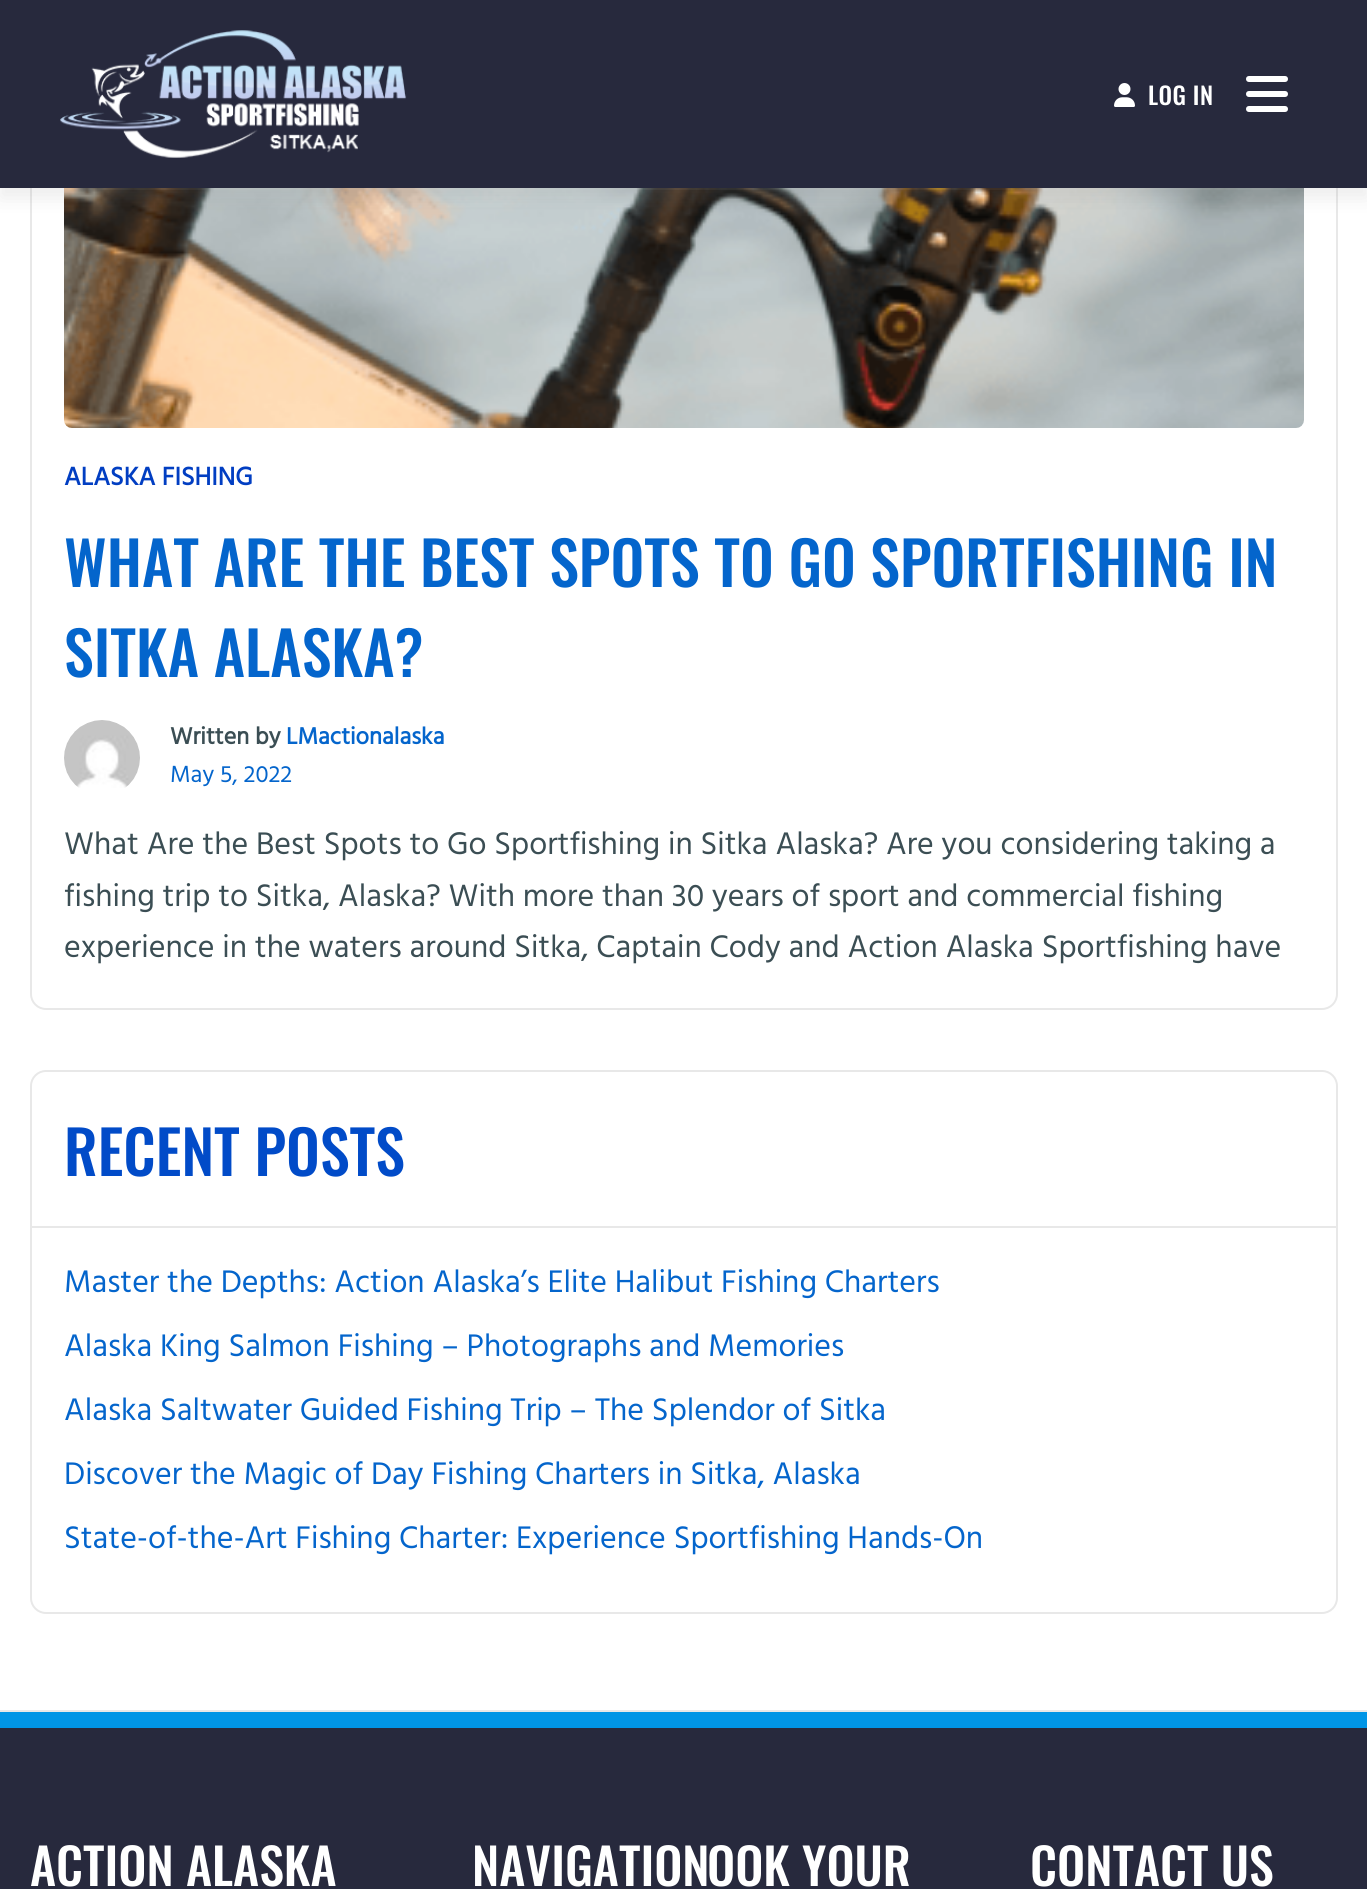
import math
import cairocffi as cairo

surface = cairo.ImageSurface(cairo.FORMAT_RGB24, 1367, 1889)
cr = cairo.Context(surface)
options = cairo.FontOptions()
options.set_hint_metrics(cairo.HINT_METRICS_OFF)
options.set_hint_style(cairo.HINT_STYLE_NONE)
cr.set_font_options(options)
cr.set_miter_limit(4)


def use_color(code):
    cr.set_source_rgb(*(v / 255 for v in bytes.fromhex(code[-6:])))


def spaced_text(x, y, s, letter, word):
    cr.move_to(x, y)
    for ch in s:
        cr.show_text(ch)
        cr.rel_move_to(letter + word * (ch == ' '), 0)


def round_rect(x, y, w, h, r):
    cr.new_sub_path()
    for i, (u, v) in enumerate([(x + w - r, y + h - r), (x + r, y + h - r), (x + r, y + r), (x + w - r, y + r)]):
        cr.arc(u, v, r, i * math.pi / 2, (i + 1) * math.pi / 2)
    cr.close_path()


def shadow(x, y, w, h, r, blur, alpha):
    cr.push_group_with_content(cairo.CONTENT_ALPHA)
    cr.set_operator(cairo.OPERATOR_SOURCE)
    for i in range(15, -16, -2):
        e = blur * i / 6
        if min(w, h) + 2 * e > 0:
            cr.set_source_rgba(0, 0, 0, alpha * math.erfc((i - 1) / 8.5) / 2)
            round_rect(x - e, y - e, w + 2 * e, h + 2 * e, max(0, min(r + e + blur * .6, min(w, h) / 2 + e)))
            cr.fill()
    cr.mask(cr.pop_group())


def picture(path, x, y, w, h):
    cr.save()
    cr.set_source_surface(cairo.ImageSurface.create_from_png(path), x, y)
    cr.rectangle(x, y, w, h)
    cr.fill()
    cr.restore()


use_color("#ffffff")
cr.paint()
round_rect(31, -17, 1306, 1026, 15)
use_color("#e8e8e8")
cr.stroke()
picture("img4.png", 64, 188, 1240, 240)
use_color("#848484")
shadow(0, 10, 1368, 188, 0, 10, 0.15)
cr.set_source_rgba(0.808, 0.808, 0.808, 0.05)
cr.rectangle(64, 188, 1240, 2)
cr.fill()
use_color("#27293d")
cr.rectangle(0, 0, 1367, 188)
cr.fill()
picture("img1.png", 60, 30, 347, 128)
picture("img2.png", 1114, 83, 21, 24)
cr.select_font_face("Oswald Medium")
cr.set_font_size(24)
use_color("#ffffff")
spaced_text(1148, 105, "LOG IN", 0.5, 0)
picture("img3.png", 1246, 76, 42, 36)
cr.select_font_face("Hind", cairo.FONT_SLANT_NORMAL, cairo.FONT_WEIGHT_BOLD)
cr.set_font_size(26)
use_color("#013ec2")
cr.move_to(64, 485)
cr.show_text("ALASKA FISHING")
cr.select_font_face("Oswald Medium")
cr.set_font_size(60)
use_color("#0465cc")
cr.move_to(64, 587)
cr.show_text("WHAT ARE THE BEST SPOTS TO GO SPORTFISHING IN")
cr.move_to(64, 677)
cr.show_text("SITKA ALASKA?")
picture("img5.png", 64, 720, 76, 68)
cr.select_font_face("Hind", cairo.FONT_SLANT_NORMAL, cairo.FONT_WEIGHT_BOLD)
cr.set_font_size(24)
use_color("#3b4e54")
cr.move_to(170, 744)
cr.show_text("Written by")
use_color("#0465cc")
cr.move_to(286, 744)
cr.show_text("LMactionalaska")
cr.select_font_face("Hind")
cr.move_to(170, 782)
cr.show_text("May 5, 2022")
cr.set_font_size(32)
use_color("#3b4e54")
cr.move_to(64, 854)
cr.show_text("What Are the Best Spots to Go Sportfishing in Sitka Alaska? Are you considering taking a")
cr.move_to(64, 906)
cr.show_text("fishing trip to Sitka, Alaska? With more than 30 years of sport and commercial fishing")
cr.move_to(64, 957)
cr.show_text("experience in the waters around Sitka, Captain Cody and Action Alaska Sportfishing have")
round_rect(31, 1071, 1306, 542, 15)
use_color("#e8e8e8")
cr.stroke()
cr.rectangle(32, 1226, 1304, 2)
cr.fill()
cr.select_font_face("Oswald Medium")
cr.set_font_size(60)
use_color("#014bc8")
cr.move_to(64, 1176)
cr.show_text("RECENT POSTS")
cr.select_font_face("Hind")
cr.set_font_size(32)
use_color("#0465cc")
cr.move_to(64, 1292)
cr.show_text("Master the Depths: Action Alaska’s Elite Halibut Fishing Charters")
cr.move_to(64, 1356)
cr.show_text("Alaska King Salmon Fishing – Photographs and Memories")
cr.move_to(64, 1420)
cr.show_text("Alaska Saltwater Guided Fishing Trip – The Splendor of Sitka")
cr.move_to(64, 1484)
cr.show_text("Discover the Magic of Day Fishing Charters in Sitka, Alaska")
cr.move_to(64, 1548)
cr.show_text("State-of-the-Art Fishing Charter: Experience Sportfishing Hands-On")
use_color("#e8e8e8")
cr.rectangle(0, 1710, 1367, 2)
cr.fill()
use_color("#27293d")
cr.rectangle(0, 1728, 1367, 161)
cr.fill()
use_color("#0095e6")
cr.rectangle(0, 1712, 1367, 16)
cr.fill()
cr.select_font_face("Oswald Medium")
cr.set_font_size(50)
use_color("#ffffff")
cr.move_to(30, 1886)
cr.show_text("ACTION ALASKA")
cr.move_to(472, 1886)
cr.show_text("NAVIGATION")
cr.move_to(707, 1886)
cr.show_text("OOK YOUR")
cr.move_to(1030, 1886)
cr.show_text("CONTACT US")
surface.write_to_png("result.png")
